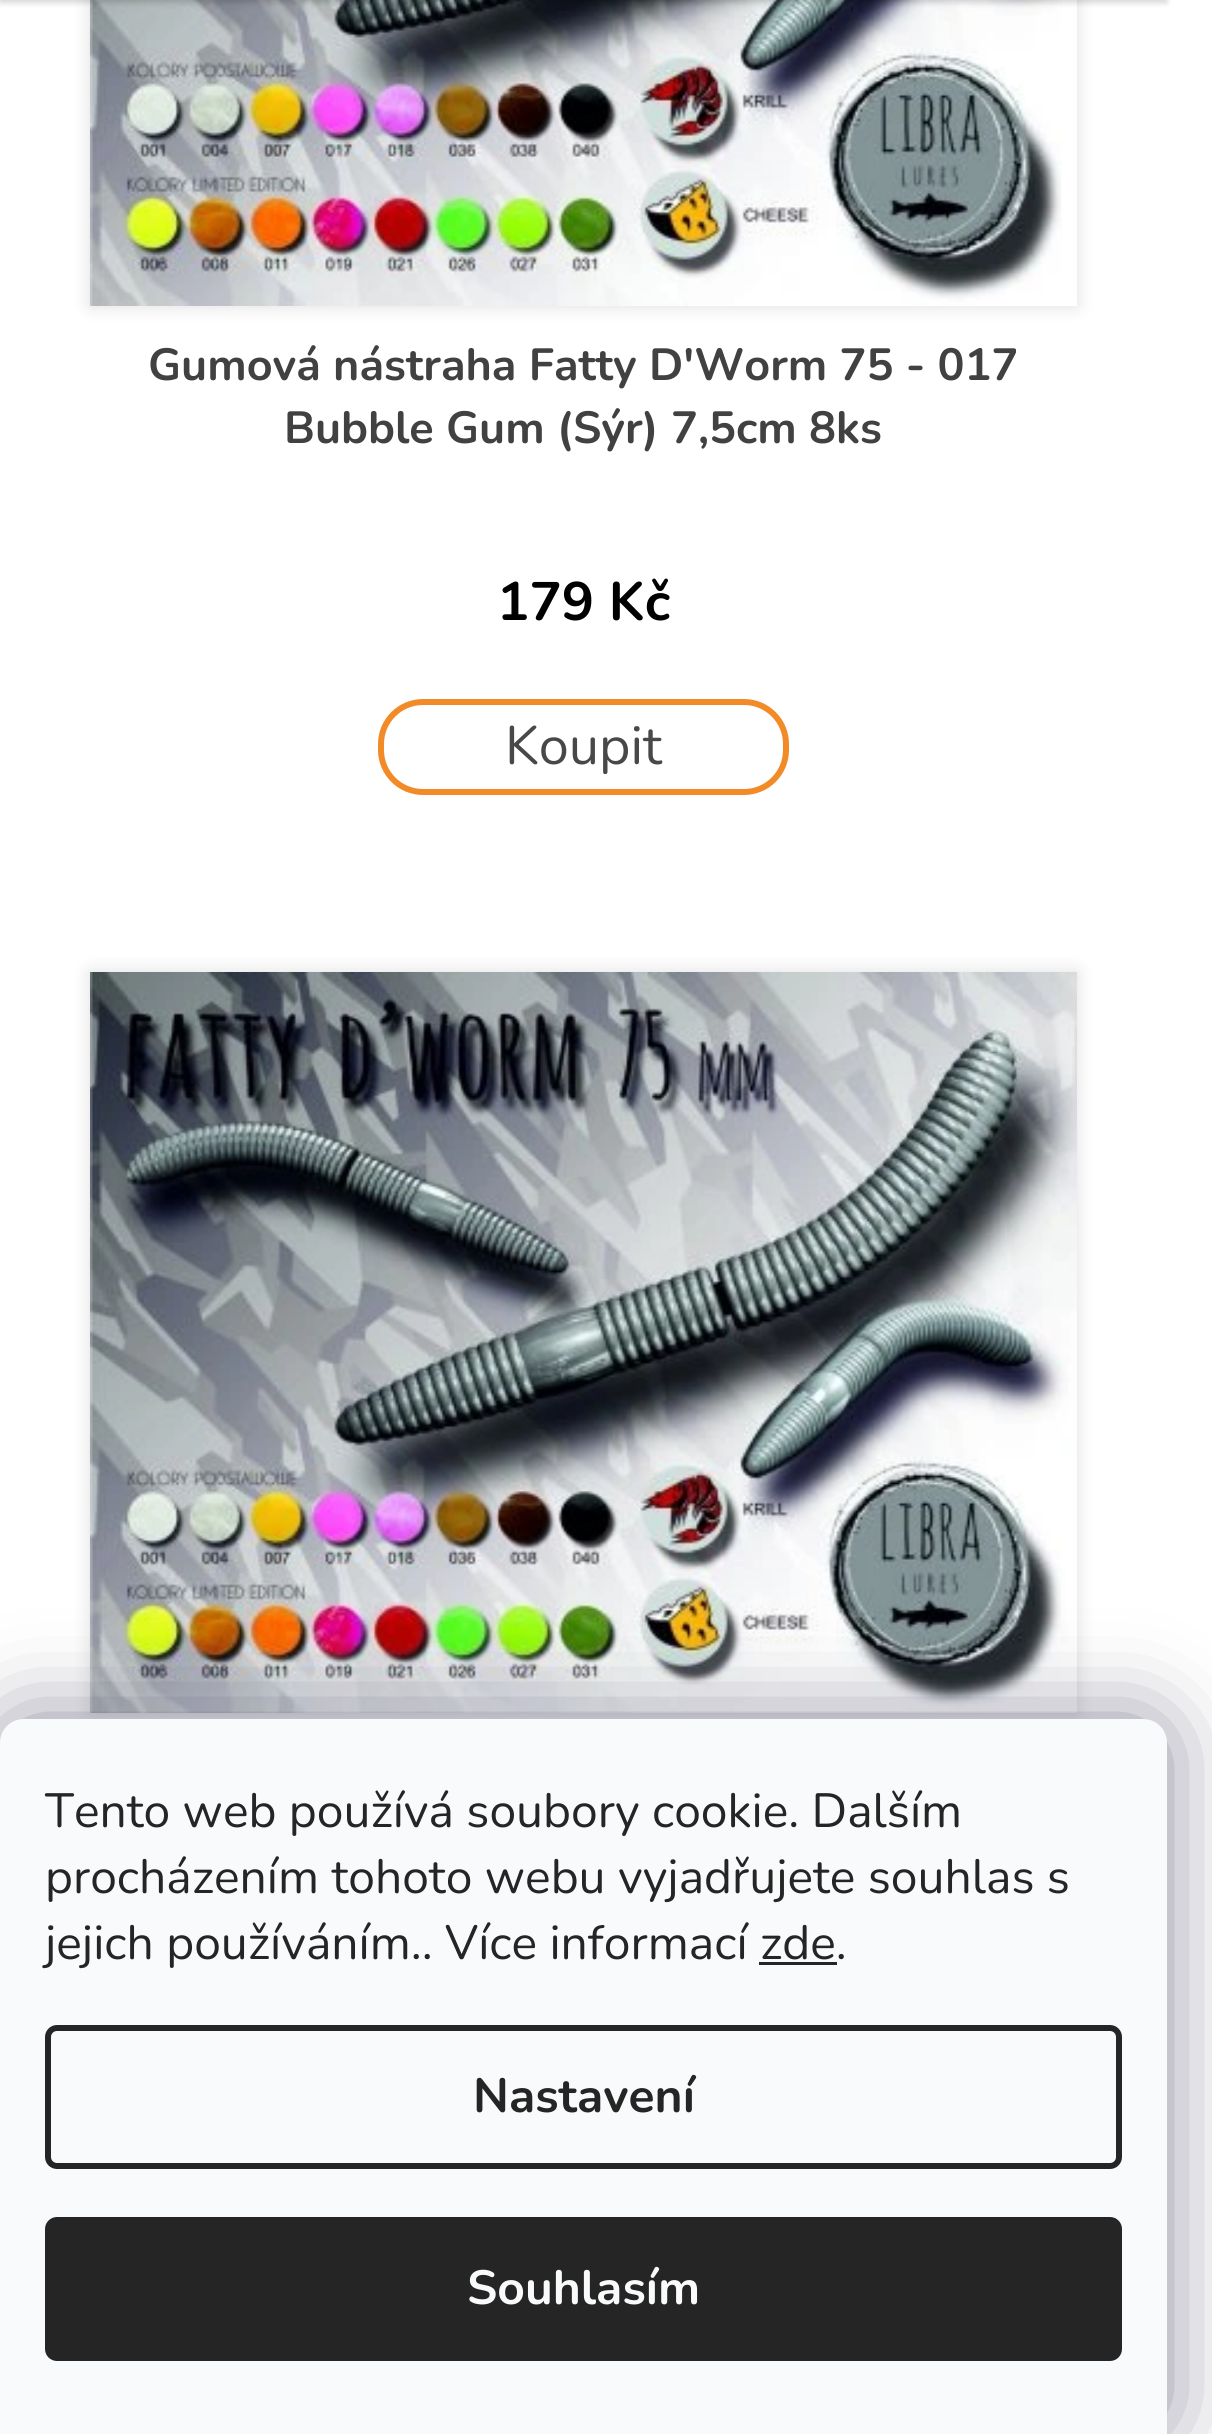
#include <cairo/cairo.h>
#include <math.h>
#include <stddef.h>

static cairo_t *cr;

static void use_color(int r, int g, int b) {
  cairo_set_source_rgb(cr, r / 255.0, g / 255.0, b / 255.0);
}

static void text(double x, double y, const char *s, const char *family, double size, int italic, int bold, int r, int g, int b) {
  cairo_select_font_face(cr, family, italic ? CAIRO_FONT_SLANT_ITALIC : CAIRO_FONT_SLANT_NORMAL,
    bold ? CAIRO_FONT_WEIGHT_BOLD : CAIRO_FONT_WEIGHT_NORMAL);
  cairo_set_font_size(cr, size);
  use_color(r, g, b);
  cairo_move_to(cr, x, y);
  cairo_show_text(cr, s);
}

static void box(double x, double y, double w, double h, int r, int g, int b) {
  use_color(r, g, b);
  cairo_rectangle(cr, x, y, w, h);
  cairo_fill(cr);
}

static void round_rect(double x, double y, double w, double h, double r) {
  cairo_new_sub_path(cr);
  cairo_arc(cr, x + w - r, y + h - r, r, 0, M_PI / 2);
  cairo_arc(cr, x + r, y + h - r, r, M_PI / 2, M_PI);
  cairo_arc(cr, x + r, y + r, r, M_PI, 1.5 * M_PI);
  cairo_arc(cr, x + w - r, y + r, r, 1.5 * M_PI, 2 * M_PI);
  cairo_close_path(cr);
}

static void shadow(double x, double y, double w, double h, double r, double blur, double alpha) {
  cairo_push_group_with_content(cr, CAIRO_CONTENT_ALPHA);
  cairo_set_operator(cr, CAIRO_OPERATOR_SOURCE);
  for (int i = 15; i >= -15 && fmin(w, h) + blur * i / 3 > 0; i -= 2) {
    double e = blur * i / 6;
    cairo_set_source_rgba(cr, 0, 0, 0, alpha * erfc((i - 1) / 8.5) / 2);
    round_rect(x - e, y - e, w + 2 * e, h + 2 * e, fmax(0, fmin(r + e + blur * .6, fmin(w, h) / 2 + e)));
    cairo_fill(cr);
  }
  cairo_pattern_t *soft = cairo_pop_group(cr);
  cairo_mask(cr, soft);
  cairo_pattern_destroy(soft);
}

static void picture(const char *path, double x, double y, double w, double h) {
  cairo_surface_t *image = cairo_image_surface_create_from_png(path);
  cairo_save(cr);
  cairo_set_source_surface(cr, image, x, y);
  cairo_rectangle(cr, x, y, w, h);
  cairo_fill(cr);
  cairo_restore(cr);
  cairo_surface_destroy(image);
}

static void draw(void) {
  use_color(255, 255, 255);
  cairo_paint(cr);
  cairo_save(cr);
  cairo_set_fill_rule(cr, CAIRO_FILL_RULE_EVEN_ODD);
  cairo_new_path(cr);
  cairo_move_to(cr, 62, 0);
  cairo_line_to(cr, 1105, 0);
  cairo_line_to(cr, 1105, 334);
  cairo_line_to(cr, 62, 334);
  cairo_close_path(cr);
  cairo_move_to(cr, 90, -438);
  cairo_line_to(cr, 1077, -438);
  cairo_line_to(cr, 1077, 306);
  cairo_line_to(cr, 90, 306);
  cairo_close_path(cr);
  cairo_clip(cr);
  use_color(0, 0, 0);
  shadow(90, -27, 987, 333, 0, 9, 0.13);
  cairo_restore(cr);
  picture("img_01.png", 90, 0, 972, 306);
  use_color(0, 0, 0);
  shadow(0, -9, 1167, 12, 0, 3, 0.16);
  round_rect(381, 702, 405, 90, 42);
  use_color(242, 138, 39);
  cairo_set_line_width(cr, 6);
  cairo_stroke(cr);
  use_color(0, 0, 0);
  shadow(90, 972, 987, 741, 0, 9, 0.13);
  picture("img_02.png", 90, 972, 987, 741);
  use_color(27, 25, 57);
  shadow(0, 1719, 1167, 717, 24, 45, 0.5);
  use_color(248, 250, 251);
  cairo_new_path(cr);
  cairo_move_to(cr, 24, 1719);
  cairo_line_to(cr, 1143, 1719);
  cairo_curve_to(cr, 1156.5, 1719, 1167, 1729.5, 1167, 1743);
  cairo_line_to(cr, 1167, 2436);
  cairo_line_to(cr, 0, 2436);
  cairo_line_to(cr, 0, 1743);
  cairo_curve_to(cr, 0, 1729.5, 10.5, 1719, 24, 1719);
  cairo_close_path(cr);
  cairo_fill(cr);
  box(759, 1962, 78, 3, 37, 37, 37);
  round_rect(48, 2028, 1071, 138, 9);
  cairo_stroke(cr);
  round_rect(45, 2217, 1077, 144, 12);
  cairo_fill(cr);
  text(148, 380, "Gumová nástraha Fatty D'Worm 75 - 017", "Nunito", 45, 0, 1, 65, 65, 65);
  text(284, 443, "Bubble Gum (Sýr) 7,5cm 8ks", "Nunito", 45, 0, 1, 65, 65, 65);
  text(497, 620, "179 Kč", "Nunito", 54, 0, 1, 0, 0, 0);
  text(505, 764, "Koupit", "Nunito", 54, 0, 0, 72, 72, 72);
  text(45, 1827, "Tento web používá soubory cookie. Dalším", "Nunito", 48, 0, 0, 37, 37, 37);
  text(45, 1893, "procházením tohoto webu vyjadřujete souhlas s", "Nunito", 48, 0, 0, 37, 37, 37);
  text(45, 1959, "jejich používáním.. Více informací zde.", "Nunito", 48, 0, 0, 37, 37, 37);
  text(473, 2112, "Nastavení", "Nunito", 48, 0, 1, 37, 37, 37);
  text(467, 2304, "Souhlasím", "Nunito", 48, 0, 1, 248, 250, 251);
}

int main(void) {
  cairo_surface_t *surface = cairo_image_surface_create(CAIRO_FORMAT_RGB24, 1212, 2434);
  cr = cairo_create(surface);
  cairo_font_options_t *options = cairo_font_options_create();
  cairo_font_options_set_hint_metrics(options, CAIRO_HINT_METRICS_OFF);
  cairo_font_options_set_hint_style(options, CAIRO_HINT_STYLE_NONE);
  cairo_set_font_options(cr, options);
  cairo_set_miter_limit(cr, 4);
  draw();
  cairo_surface_write_to_png(surface, "out.png");
  cairo_font_options_destroy(options);
  cairo_destroy(cr);
  cairo_surface_destroy(surface);
  return 0;
}
